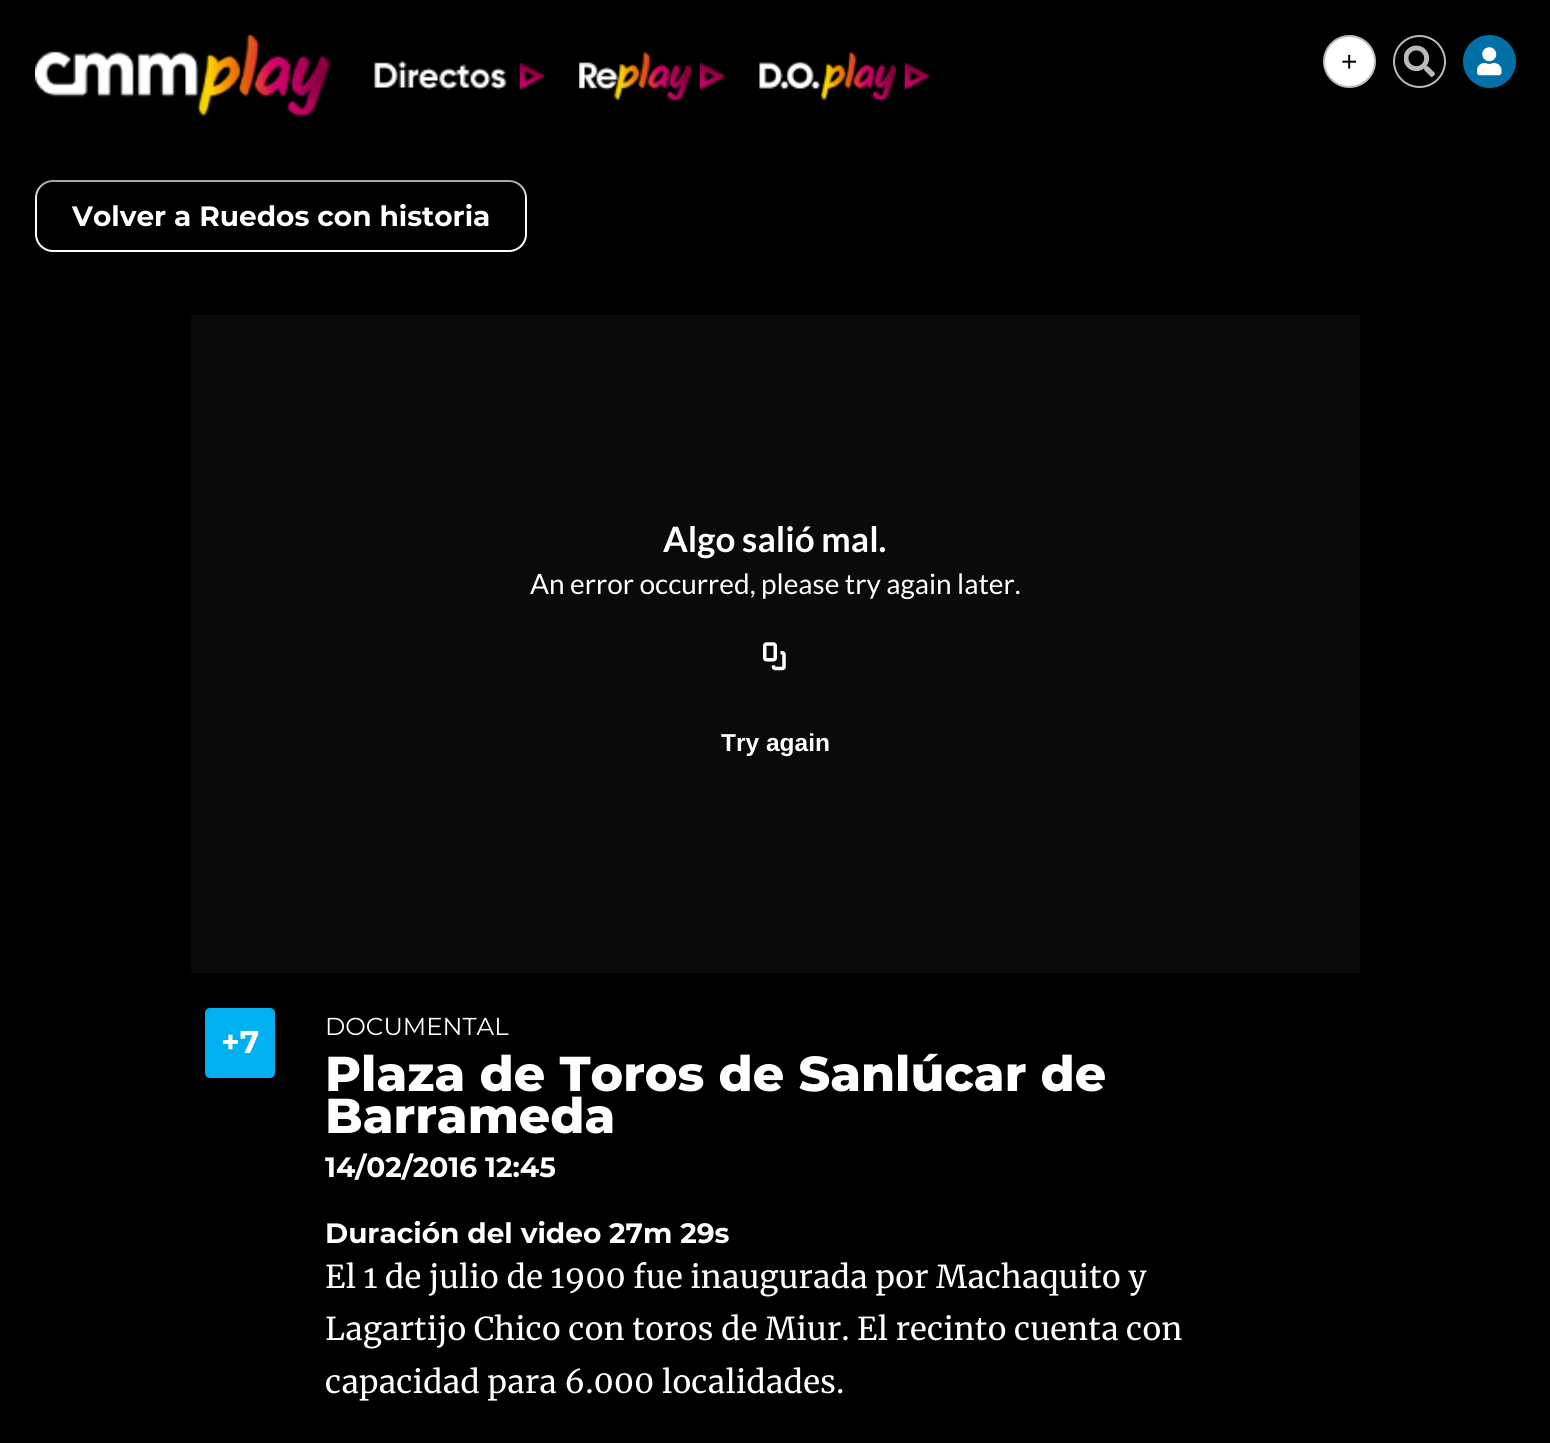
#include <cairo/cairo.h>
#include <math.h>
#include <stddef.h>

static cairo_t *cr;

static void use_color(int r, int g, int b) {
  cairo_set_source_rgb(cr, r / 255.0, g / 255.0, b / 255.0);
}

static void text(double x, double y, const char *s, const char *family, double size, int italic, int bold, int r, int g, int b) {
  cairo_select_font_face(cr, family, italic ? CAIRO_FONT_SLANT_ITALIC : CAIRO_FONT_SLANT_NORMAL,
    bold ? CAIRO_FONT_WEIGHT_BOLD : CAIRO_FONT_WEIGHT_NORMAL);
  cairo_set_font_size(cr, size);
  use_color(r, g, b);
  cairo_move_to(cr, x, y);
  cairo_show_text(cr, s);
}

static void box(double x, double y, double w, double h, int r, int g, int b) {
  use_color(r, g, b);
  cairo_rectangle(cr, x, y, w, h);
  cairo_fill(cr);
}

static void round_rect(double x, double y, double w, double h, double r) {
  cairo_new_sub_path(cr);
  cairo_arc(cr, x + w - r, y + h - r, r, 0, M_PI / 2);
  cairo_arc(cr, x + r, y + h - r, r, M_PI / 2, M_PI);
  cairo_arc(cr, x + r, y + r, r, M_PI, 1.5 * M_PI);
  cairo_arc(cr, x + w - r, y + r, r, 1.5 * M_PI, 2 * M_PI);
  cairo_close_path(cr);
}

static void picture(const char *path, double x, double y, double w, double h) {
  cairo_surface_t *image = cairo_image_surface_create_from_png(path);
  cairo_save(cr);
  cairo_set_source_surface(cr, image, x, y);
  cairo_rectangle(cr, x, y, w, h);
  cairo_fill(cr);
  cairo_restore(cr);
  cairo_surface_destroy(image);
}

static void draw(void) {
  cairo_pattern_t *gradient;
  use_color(0, 0, 0);
  cairo_paint(cr);
  round_rect(36, 181, 490, 70, 17);
  use_color(255, 255, 255);
  cairo_stroke(cr);
  gradient = cairo_pattern_create_linear(775, 203, 775, 0);
  cairo_pattern_add_color_stop_rgba(gradient, 0, 0, 0, 0, 0);
  cairo_pattern_add_color_stop_rgba(gradient, 0.28, 0, 0, 0, 0.91);
  cairo_pattern_add_color_stop_rgba(gradient, 1, 0, 0, 0, 1);
  cairo_set_source(cr, gradient);
  cairo_pattern_destroy(gradient);
  cairo_rectangle(cr, 35, 180, 492, 22);
  cairo_fill(cr);
  picture("img_01.png", 35, 35, 294, 81);
  picture("img_02.png", 374, 60, 133, 30);
  picture("img_03.png", 519, 63, 26, 27);
  picture("img_04.png", 579, 52, 113, 48);
  picture("img_05.png", 700, 63, 25, 27);
  picture("img_06.png", 759, 52, 137, 48);
  picture("img_03.png", 904, 63, 26, 27);
  use_color(255, 255, 255);
  cairo_arc(cr, 1349.5, 61.5, 25.5, 0, 2 * M_PI);
  cairo_fill_preserve(cr);
  use_color(186, 186, 186);
  cairo_stroke(cr);
  cairo_arc(cr, 1419.5, 61.5, 25.5, 0, 2 * M_PI);
  cairo_stroke(cr);
  picture("img_07.png", 1404, 45, 31, 32);
  use_color(0, 112, 167);
  cairo_arc(cr, 1489.5, 61.5, 26.5, 0, 2 * M_PI);
  cairo_fill(cr);
  picture("img_08.png", 1477, 47, 25, 29);
  box(191, 315, 1169, 658, 10, 10, 10);
  picture("img_09.png", 763, 642, 23, 29);
  use_color(0, 176, 240);
  round_rect(205, 1008, 70, 70, 5);
  cairo_fill(cr);
  text(1341, 71, "+", "Liberation Sans", 28, 0, 0, 0, 0, 0);
  text(72, 226, "Volver a Ruedos con historia", "Montserrat", 28, 0, 1, 255, 255, 255);
  text(663, 552, "Algo salió mal.", "Lato", 35, 0, 1, 255, 255, 255);
  text(530, 594, "An error occurred, please try again later.", "Lato", 28, 0, 0, 255, 255, 255);
  text(721, 751, "Try again", "Liberation Sans", 24.5, 0, 1, 255, 255, 255);
  text(221, 1053, "+7", "Montserrat", 31.5, 0, 1, 255, 255, 255);
  text(325, 1035, "DOCUMENTAL", "Montserrat", 24.5, 0, 0, 255, 255, 255);
  text(325, 1091, "Plaza de Toros de Sanlúcar de", "Montserrat ExtraBold", 49, 0, 0, 255, 255, 255);
  text(325, 1133, "Barrameda", "Montserrat ExtraBold", 49, 0, 0, 255, 255, 255);
  text(325, 1177, "14/02/2016 12:45", "Montserrat", 28, 0, 1, 255, 255, 255);
  text(325, 1243, "Duración del video", "Montserrat", 28, 0, 1, 255, 255, 255);
  text(609, 1243, "27m 29s", "Montserrat", 28, 0, 1, 255, 255, 255);
  text(325, 1288, "El 1 de julio de 1900 fue inaugurada por Machaquito y", "Merriweather", 31.5, 0, 0, 255, 255, 255);
  text(325, 1340, "Lagartijo Chico con toros de Miur. El recinto cuenta con", "Merriweather", 31.5, 0, 0, 255, 255, 255);
  text(325, 1393, "capacidad para 6.000 localidades.", "Merriweather", 31.5, 0, 0, 255, 255, 255);
}

int main(void) {
  cairo_surface_t *surface = cairo_image_surface_create(CAIRO_FORMAT_RGB24, 1550, 1443);
  cr = cairo_create(surface);
  cairo_font_options_t *options = cairo_font_options_create();
  cairo_font_options_set_hint_metrics(options, CAIRO_HINT_METRICS_OFF);
  cairo_font_options_set_hint_style(options, CAIRO_HINT_STYLE_NONE);
  cairo_set_font_options(cr, options);
  cairo_set_miter_limit(cr, 4);
  draw();
  cairo_surface_write_to_png(surface, "out.png");
  cairo_font_options_destroy(options);
  cairo_destroy(cr);
  cairo_surface_destroy(surface);
  return 0;
}
